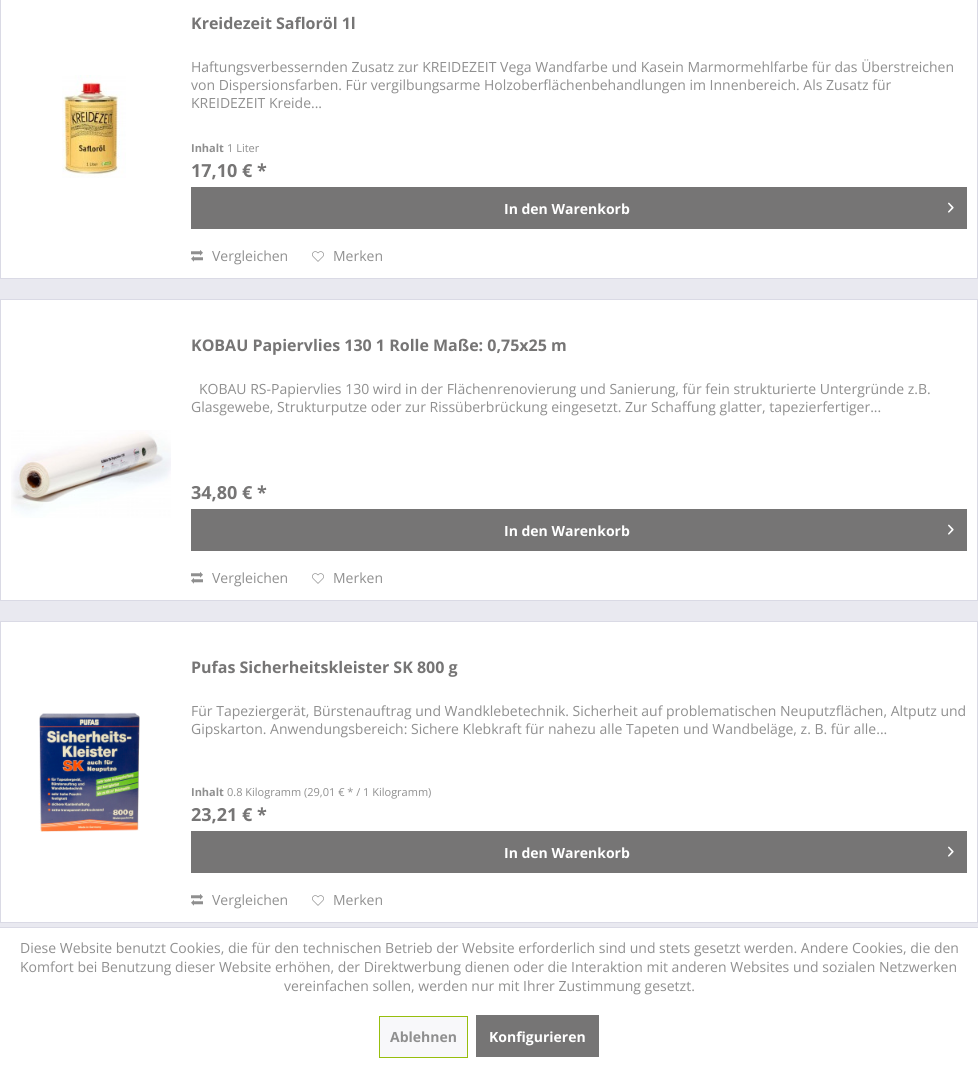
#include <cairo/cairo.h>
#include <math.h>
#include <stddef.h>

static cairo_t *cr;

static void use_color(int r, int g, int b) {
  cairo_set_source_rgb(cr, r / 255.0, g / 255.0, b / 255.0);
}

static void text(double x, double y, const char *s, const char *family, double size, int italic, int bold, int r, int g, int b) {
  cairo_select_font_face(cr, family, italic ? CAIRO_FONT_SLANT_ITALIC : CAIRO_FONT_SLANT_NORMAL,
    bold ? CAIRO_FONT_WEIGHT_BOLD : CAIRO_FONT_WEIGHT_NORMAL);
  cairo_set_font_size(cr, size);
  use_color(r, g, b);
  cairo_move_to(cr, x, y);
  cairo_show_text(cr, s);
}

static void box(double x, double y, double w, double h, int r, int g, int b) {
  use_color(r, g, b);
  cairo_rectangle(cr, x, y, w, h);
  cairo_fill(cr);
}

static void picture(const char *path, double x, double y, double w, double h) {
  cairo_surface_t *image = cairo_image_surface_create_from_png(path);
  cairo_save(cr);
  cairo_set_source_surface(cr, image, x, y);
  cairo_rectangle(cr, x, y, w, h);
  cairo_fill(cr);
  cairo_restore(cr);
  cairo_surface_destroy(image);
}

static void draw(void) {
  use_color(233, 233, 240);
  cairo_paint(cr);
  use_color(255, 255, 255);
  cairo_rectangle(cr, 0.5, -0.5, 977, 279);
  cairo_fill_preserve(cr);
  use_color(218, 218, 229);
  cairo_set_line_width(cr, 1);
  cairo_stroke(cr);
  picture("img_01.png", 62, 75, 64, 103);
  box(191, 187, 776, 42, 118, 117, 117);
  picture("img_02.png", 948, 202, 6, 11);
  picture("img_03.png", 191, 250, 12, 12);
  picture("img_04.png", 312, 251, 12, 11);
  use_color(255, 255, 255);
  cairo_rectangle(cr, 0.5, 299.5, 977, 301);
  cairo_fill_preserve(cr);
  use_color(218, 218, 229);
  cairo_stroke(cr);
  picture("img_05.png", 11, 430, 160, 88);
  box(191, 509, 776, 42, 118, 117, 117);
  picture("img_02.png", 948, 524, 6, 11);
  picture("img_03.png", 191, 572, 12, 12);
  picture("img_04.png", 312, 573, 12, 11);
  use_color(255, 255, 255);
  cairo_rectangle(cr, 0.5, 621.5, 977, 301);
  cairo_fill_preserve(cr);
  use_color(218, 218, 229);
  cairo_stroke(cr);
  picture("img_06.png", 39, 712, 101, 120);
  box(191, 831, 776, 42, 118, 117, 117);
  picture("img_02.png", 948, 846, 6, 11);
  picture("img_03.png", 191, 894, 12, 12);
  picture("img_04.png", 312, 895, 12, 11);
  box(0, 928, 978, 140, 255, 255, 255);
  box(0, 927, 978, 1, 218, 218, 229);
  use_color(248, 248, 250);
  cairo_rectangle(cr, 379.5, 1016.5, 88, 41);
  cairo_fill_preserve(cr);
  use_color(151, 190, 13);
  cairo_stroke(cr);
  box(476, 1015, 123, 42, 118, 117, 117);
  text(191, 29, "Kreidezeit Safloröl 1l", "Open Sans", 16, 0, 1, 118, 117, 117);
  text(191, 72, "Haftungsverbessernden Zusatz zur KREIDEZEIT Vega Wandfarbe und Kasein Marmormehlfarbe für das Überstreichen", "Open Sans", 14, 0, 0, 143, 143, 143);
  text(191, 90, "von Dispersionsfarben. Für vergilbungsarme Holzoberflächenbehandlungen im Innenbereich. Als Zusatz für", "Open Sans", 14, 0, 0, 143, 143, 143);
  text(191, 108, "KREIDEZEIT Kreide...", "Open Sans", 14, 0, 0, 143, 143, 143);
  text(191, 152, "Inhalt", "Open Sans", 11, 0, 1, 143, 143, 143);
  text(227, 152, "1 Liter", "Open Sans", 11, 0, 0, 143, 143, 143);
  text(191, 177, "17,10 € *", "Open Sans", 18, 0, 1, 118, 117, 117);
  text(504, 214, "In den Warenkorb", "Open Sans", 14, 0, 1, 255, 255, 255);
  text(212, 261, "Vergleichen", "Open Sans", 14, 0, 0, 143, 143, 143);
  text(333, 261, "Merken", "Open Sans", 14, 0, 0, 143, 143, 143);
  text(191, 351, "KOBAU Papiervlies 130 1 Rolle Maße: 0,75x25 m", "Open Sans", 16, 0, 1, 118, 117, 117);
  text(199, 394, "KOBAU RS-Papiervlies 130 wird in der Flächenrenovierung und Sanierung, für fein strukturierte Untergründe z.B.", "Open Sans", 14, 0, 0, 143, 143, 143);
  text(191, 412, "Glasgewebe, Strukturputze oder zur Rissüberbrückung eingesetzt. Zur Schaffung glatter, tapezierfertiger...", "Open Sans", 14, 0, 0, 143, 143, 143);
  text(191, 499, "34,80 € *", "Open Sans", 18, 0, 1, 118, 117, 117);
  text(504, 536, "In den Warenkorb", "Open Sans", 14, 0, 1, 255, 255, 255);
  text(212, 583, "Vergleichen", "Open Sans", 14, 0, 0, 143, 143, 143);
  text(333, 583, "Merken", "Open Sans", 14, 0, 0, 143, 143, 143);
  text(191, 673, "Pufas Sicherheitskleister SK 800 g", "Open Sans", 16, 0, 1, 118, 117, 117);
  text(191, 716, "Für Tapeziergerät, Bürstenauftrag und Wandklebetechnik. Sicherheit auf problematischen Neuputzflächen, Altputz und", "Open Sans", 14, 0, 0, 143, 143, 143);
  text(191, 734, "Gipskarton. Anwendungsbereich: Sichere Klebkraft für nahezu alle Tapeten und Wandbeläge, z. B. für alle...", "Open Sans", 14, 0, 0, 143, 143, 143);
  text(191, 796, "Inhalt", "Open Sans", 11, 0, 1, 143, 143, 143);
  text(227, 796, "0.8 Kilogramm (29,01 € * / 1 Kilogramm)", "Open Sans", 11, 0, 0, 143, 143, 143);
  text(191, 821, "23,21 € *", "Open Sans", 18, 0, 1, 118, 117, 117);
  text(504, 858, "In den Warenkorb", "Open Sans", 14, 0, 1, 255, 255, 255);
  text(212, 905, "Vergleichen", "Open Sans", 14, 0, 0, 143, 143, 143);
  text(333, 905, "Merken", "Open Sans", 14, 0, 0, 143, 143, 143);
  text(20, 953, "Diese Website benutzt Cookies, die für den technischen Betrieb der Website erforderlich sind und stets gesetzt werden. Andere Cookies, die den", "Open Sans", 14, 0, 0, 143, 143, 143);
  text(20, 972, "Komfort bei Benutzung dieser Website erhöhen, der Direktwerbung dienen oder die Interaktion mit anderen Websites und sozialen Netzwerken", "Open Sans", 14, 0, 0, 143, 143, 143);
  text(284, 991, "vereinfachen sollen, werden nur mit Ihrer Zustimmung gesetzt.", "Open Sans", 14, 0, 0, 143, 143, 143);
  text(390, 1042, "Ablehnen", "Open Sans", 14, 0, 1, 143, 143, 143);
  text(489, 1042, "Konfigurieren", "Open Sans", 14, 0, 1, 255, 255, 255);
}

int main(void) {
  cairo_surface_t *surface = cairo_image_surface_create(CAIRO_FORMAT_RGB24, 978, 1068);
  cr = cairo_create(surface);
  cairo_font_options_t *options = cairo_font_options_create();
  cairo_font_options_set_hint_metrics(options, CAIRO_HINT_METRICS_OFF);
  cairo_font_options_set_hint_style(options, CAIRO_HINT_STYLE_NONE);
  cairo_set_font_options(cr, options);
  cairo_set_miter_limit(cr, 4);
  draw();
  cairo_surface_write_to_png(surface, "out.png");
  cairo_font_options_destroy(options);
  cairo_destroy(cr);
  cairo_surface_destroy(surface);
  return 0;
}
